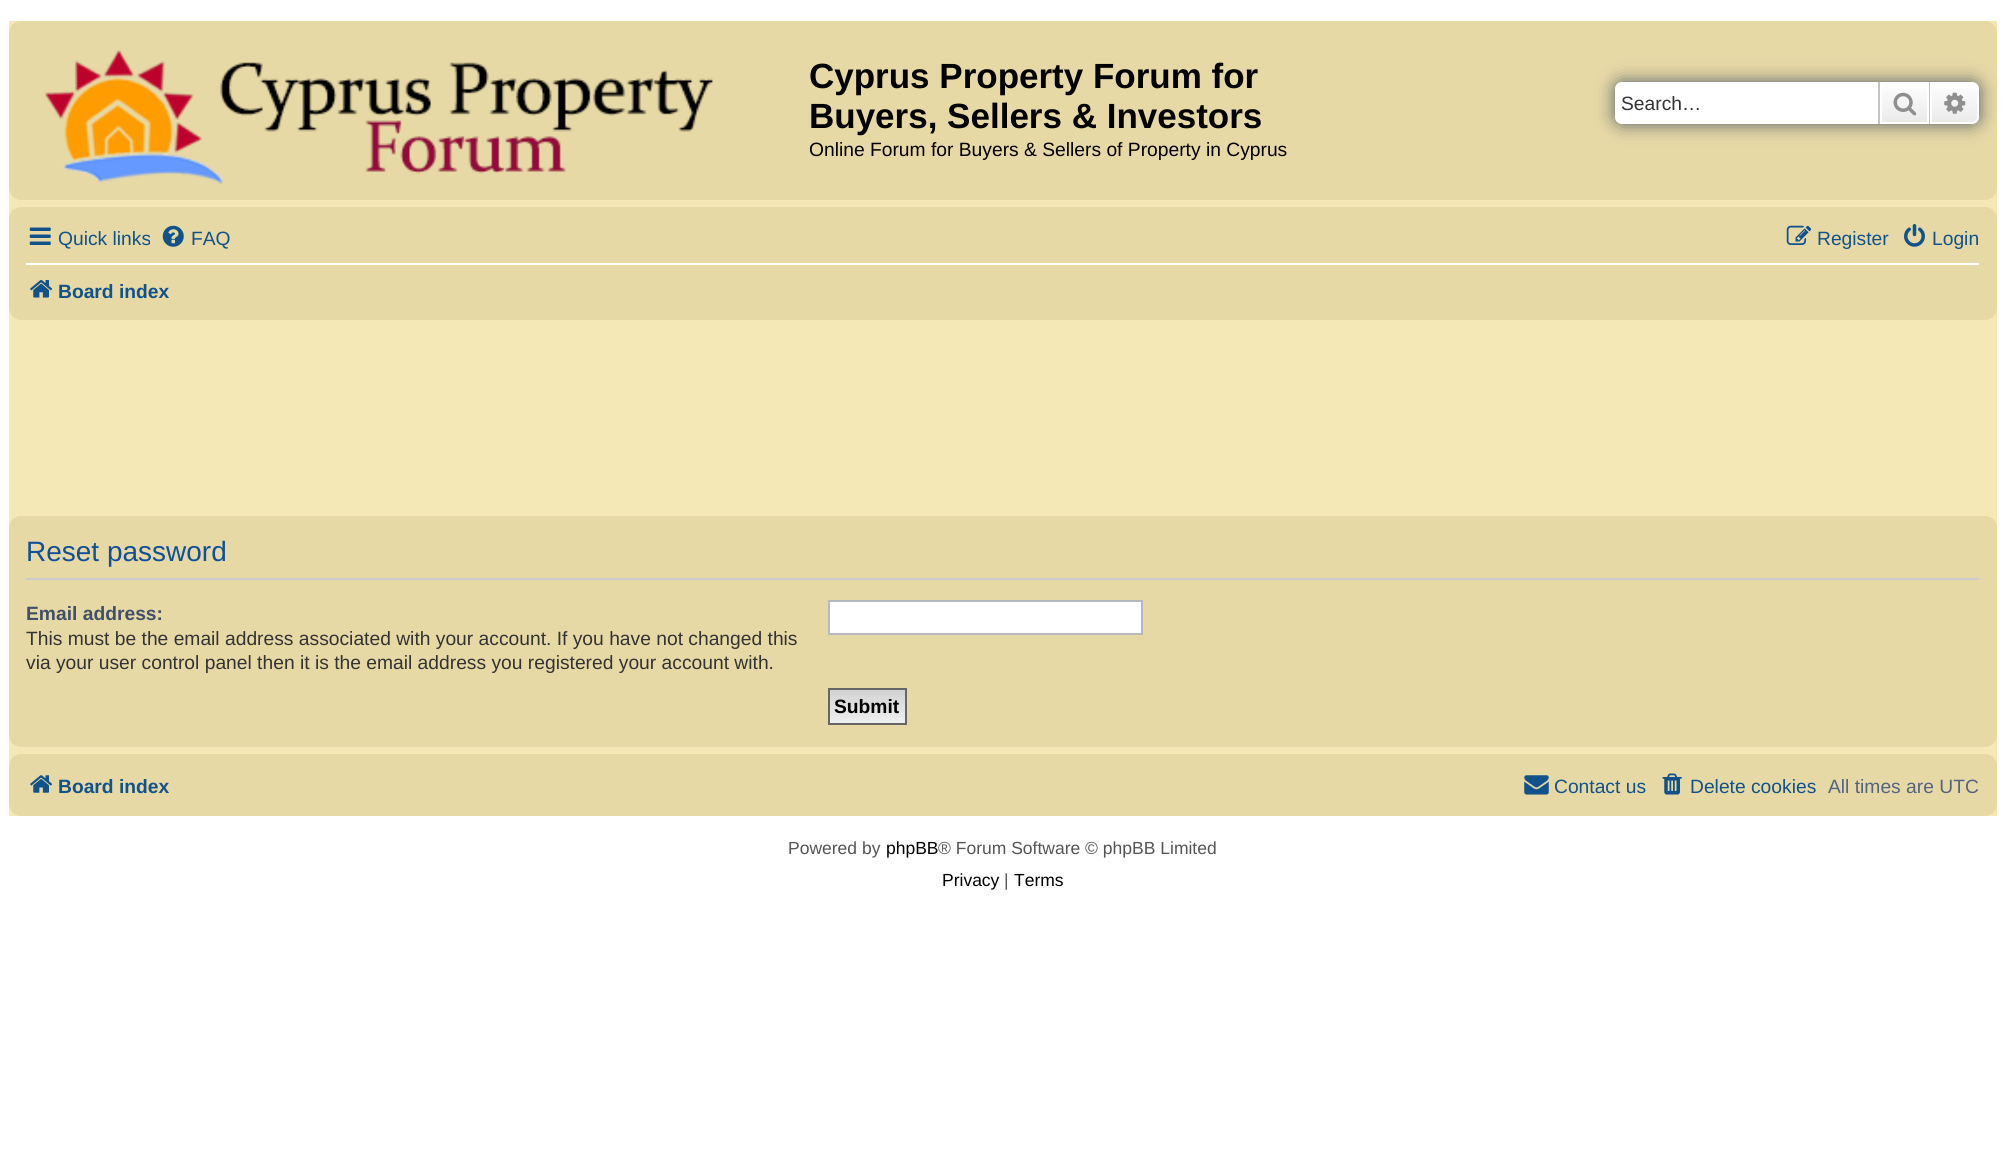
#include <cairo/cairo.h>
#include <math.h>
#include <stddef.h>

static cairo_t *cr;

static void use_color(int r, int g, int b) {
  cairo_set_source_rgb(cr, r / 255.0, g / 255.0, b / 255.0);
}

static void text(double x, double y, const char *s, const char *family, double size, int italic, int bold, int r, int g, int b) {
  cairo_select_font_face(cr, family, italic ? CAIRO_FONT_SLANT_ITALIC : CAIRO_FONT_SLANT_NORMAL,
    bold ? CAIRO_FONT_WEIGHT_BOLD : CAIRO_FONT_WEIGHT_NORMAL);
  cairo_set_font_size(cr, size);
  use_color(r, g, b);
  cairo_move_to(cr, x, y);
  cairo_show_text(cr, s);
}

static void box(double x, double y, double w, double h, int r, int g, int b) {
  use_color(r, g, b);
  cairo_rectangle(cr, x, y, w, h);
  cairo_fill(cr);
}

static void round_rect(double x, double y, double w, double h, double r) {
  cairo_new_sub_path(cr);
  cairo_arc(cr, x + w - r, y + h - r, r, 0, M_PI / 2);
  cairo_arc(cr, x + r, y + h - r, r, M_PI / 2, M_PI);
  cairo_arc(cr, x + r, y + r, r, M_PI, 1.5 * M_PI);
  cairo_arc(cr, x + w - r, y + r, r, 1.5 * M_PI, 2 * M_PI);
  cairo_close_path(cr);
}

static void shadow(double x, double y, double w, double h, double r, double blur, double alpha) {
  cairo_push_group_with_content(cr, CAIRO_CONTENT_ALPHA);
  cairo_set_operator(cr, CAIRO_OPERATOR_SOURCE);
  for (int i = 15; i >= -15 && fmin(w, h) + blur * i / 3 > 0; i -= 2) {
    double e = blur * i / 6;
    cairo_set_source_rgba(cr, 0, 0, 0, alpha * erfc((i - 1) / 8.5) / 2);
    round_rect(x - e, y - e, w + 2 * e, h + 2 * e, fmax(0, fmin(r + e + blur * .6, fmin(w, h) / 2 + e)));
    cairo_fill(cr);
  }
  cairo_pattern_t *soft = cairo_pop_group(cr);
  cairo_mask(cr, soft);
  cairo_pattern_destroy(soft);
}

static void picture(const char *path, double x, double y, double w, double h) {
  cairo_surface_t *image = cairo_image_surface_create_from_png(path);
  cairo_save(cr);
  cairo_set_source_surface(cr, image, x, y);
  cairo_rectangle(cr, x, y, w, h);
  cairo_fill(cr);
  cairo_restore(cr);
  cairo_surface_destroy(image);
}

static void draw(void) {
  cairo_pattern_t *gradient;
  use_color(255, 255, 255);
  cairo_paint(cr);
  box(9, 21, 1988, 795, 245, 232, 183);
  use_color(231, 217, 166);
  round_rect(9, 21, 1988, 179, 12);
  cairo_fill(cr);
  picture("img_01.png", 45, 50, 668, 135);
  use_color(80, 92, 101);
  shadow(1615, 82, 364, 42, 7, 9, 1);
  use_color(255, 255, 255);
  cairo_new_path(cr);
  cairo_move_to(cr, 1622, 82);
  cairo_line_to(cr, 1878, 82);
  cairo_line_to(cr, 1878, 124);
  cairo_line_to(cr, 1622, 124);
  cairo_curve_to(cr, 1618, 124, 1615, 121, 1615, 117);
  cairo_line_to(cr, 1615, 89);
  cairo_curve_to(cr, 1615, 85, 1618, 82, 1622, 82);
  cairo_close_path(cr);
  cairo_fill(cr);
  gradient = cairo_pattern_create_linear(1904, 82, 1904, 124);
  cairo_pattern_add_color_stop_rgba(gradient, 0, 1, 1, 1, 1);
  cairo_pattern_add_color_stop_rgba(gradient, 1, 0.914, 0.914, 0.914, 1);
  cairo_set_source(cr, gradient);
  cairo_pattern_destroy(gradient);
  cairo_rectangle(cr, 1882, 84, 45, 38);
  cairo_fill(cr);
  cairo_rectangle(cr, 1881, 83, 47, 40);
  use_color(255, 255, 255);
  cairo_stroke(cr);
  box(1929, 82, 1, 42, 199, 195, 191);
  box(1878, 82, 2, 42, 199, 195, 191);
  picture("img_02.png", 1893, 92, 24, 24);
  gradient = cairo_pattern_create_linear(1955, 82, 1955, 124);
  cairo_pattern_add_color_stop_rgba(gradient, 0, 1, 1, 1, 1);
  cairo_pattern_add_color_stop_rgba(gradient, 1, 0.914, 0.914, 0.914, 1);
  cairo_set_source(cr, gradient);
  cairo_pattern_destroy(gradient);
  cairo_new_path(cr);
  cairo_move_to(cr, 1931, 83);
  cairo_line_to(cr, 1972, 83);
  cairo_curve_to(cr, 1975.5, 83, 1978, 85.5, 1978, 89);
  cairo_line_to(cr, 1978, 117);
  cairo_curve_to(cr, 1978, 120.5, 1975.5, 123, 1972, 123);
  cairo_line_to(cr, 1931, 123);
  cairo_close_path(cr);
  cairo_fill_preserve(cr);
  use_color(255, 255, 255);
  cairo_stroke(cr);
  picture("img_03.png", 1944, 92, 22, 22);
  use_color(231, 217, 166);
  round_rect(9, 207, 1988, 113, 12);
  cairo_fill(cr);
  picture("img_04.png", 29, 227, 22, 18);
  picture("img_05.png", 162, 225, 22, 22);
  picture("img_06.png", 1786, 225, 26, 20);
  picture("img_07.png", 1904, 224, 21, 23);
  box(26, 263, 1953, 2, 255, 255, 255);
  picture("img_08.png", 30, 280, 23, 18);
  use_color(231, 217, 166);
  round_rect(9, 516, 1988, 231, 12);
  cairo_fill(cr);
  box(26, 578, 1953, 2, 204, 204, 204);
  use_color(255, 255, 255);
  cairo_rectangle(cr, 829, 601, 313, 33);
  cairo_fill_preserve(cr);
  use_color(180, 186, 192);
  cairo_stroke(cr);
  gradient = cairo_pattern_create_linear(867, 690, 867, 723);
  cairo_pattern_add_color_stop_rgba(gradient, 0, 0.824, 0.824, 0.824, 1);
  cairo_pattern_add_color_stop_rgba(gradient, 1, 0.937, 0.937, 0.937, 1);
  cairo_set_source(cr, gradient);
  cairo_pattern_destroy(gradient);
  cairo_rectangle(cr, 830, 690, 75, 33);
  cairo_fill(cr);
  cairo_rectangle(cr, 829, 689, 77, 35);
  use_color(102, 102, 102);
  cairo_stroke(cr);
  use_color(231, 217, 166);
  round_rect(9, 754, 1988, 62, 12);
  cairo_fill(cr);
  picture("img_09.png", 30, 775, 23, 18);
  picture("img_10.png", 1524, 775, 25, 20);
  picture("img_11.png", 1662, 773, 20, 22);
  text(809, 88, "Cyprus Property Forum for", "Liberation Sans", 35, 0, 1, 0, 0, 0);
  text(809, 128, "Buyers, Sellers & Investors", "Liberation Sans", 35, 0, 1, 0, 0, 0);
  text(809, 156, "Online Forum for Buyers & Sellers of Property in Cyprus", "Liberation Sans", 19.25, 0, 0, 0, 0, 0);
  text(1621, 110, "Search…", "Liberation Sans", 19.25, 0, 0, 51, 51, 51);
  text(58, 245, "Quick links", "Liberation Sans", 19.25, 0, 0, 16, 82, 137);
  text(191, 245, "FAQ", "Liberation Sans", 19.25, 0, 0, 16, 82, 137);
  text(1817, 245, "Register", "Liberation Sans", 19.25, 0, 0, 16, 82, 137);
  text(1932, 245, "Login", "Liberation Sans", 19.25, 0, 0, 16, 82, 137);
  text(58, 298, "Board index", "Liberation Sans", 19.25, 0, 1, 16, 82, 137);
  text(26, 561, "Reset password", "Liberation Sans", 28, 0, 0, 17, 80, 152);
  text(26, 620, "Email address:", "Liberation Sans", 19.25, 0, 1, 66, 80, 103);
  text(26, 645, "This must be the email address associated with your account. If you have not changed this", "Liberation Sans", 19.25, 0, 0, 51, 51, 51);
  text(26, 669, "via your user control panel then it is the email address you registered your account with.", "Liberation Sans", 19.25, 0, 0, 51, 51, 51);
  text(834, 713, "Submit", "Liberation Sans", 19.25, 0, 1, 0, 0, 0);
  text(58, 793, "Board index", "Liberation Sans", 19.25, 0, 1, 16, 82, 137);
  text(1554, 793, "Contact us", "Liberation Sans", 19.25, 0, 0, 16, 82, 137);
  text(1690, 793, "Delete cookies", "Liberation Sans", 19.25, 0, 0, 16, 82, 137);
  text(1828, 793, "All times are UTC", "Liberation Sans", 19.25, 0, 0, 83, 100, 130);
  text(788, 854, "Powered by", "Liberation Sans", 17.5, 0, 0, 85, 85, 85);
  text(886, 854, "phpBB", "Liberation Sans", 17.5, 0, 0, 0, 0, 0);
  text(938, 854, "® Forum Software © phpBB Limited", "Liberation Sans", 17.5, 0, 0, 85, 85, 85);
  text(942, 886, "Privacy", "Liberation Sans", 17.5, 0, 0, 0, 0, 0);
  text(1004, 886, "|", "Liberation Sans", 17.5, 0, 0, 85, 85, 85);
  text(1014, 886, "Terms", "Liberation Sans", 17.5, 0, 0, 0, 0, 0);
}

int main(void) {
  cairo_surface_t *surface = cairo_image_surface_create(CAIRO_FORMAT_RGB24, 2004, 1162);
  cr = cairo_create(surface);
  cairo_font_options_t *options = cairo_font_options_create();
  cairo_font_options_set_hint_metrics(options, CAIRO_HINT_METRICS_OFF);
  cairo_font_options_set_hint_style(options, CAIRO_HINT_STYLE_NONE);
  cairo_set_font_options(cr, options);
  cairo_set_miter_limit(cr, 4);
  draw();
  cairo_surface_write_to_png(surface, "out.png");
  cairo_font_options_destroy(options);
  cairo_destroy(cr);
  cairo_surface_destroy(surface);
  return 0;
}
